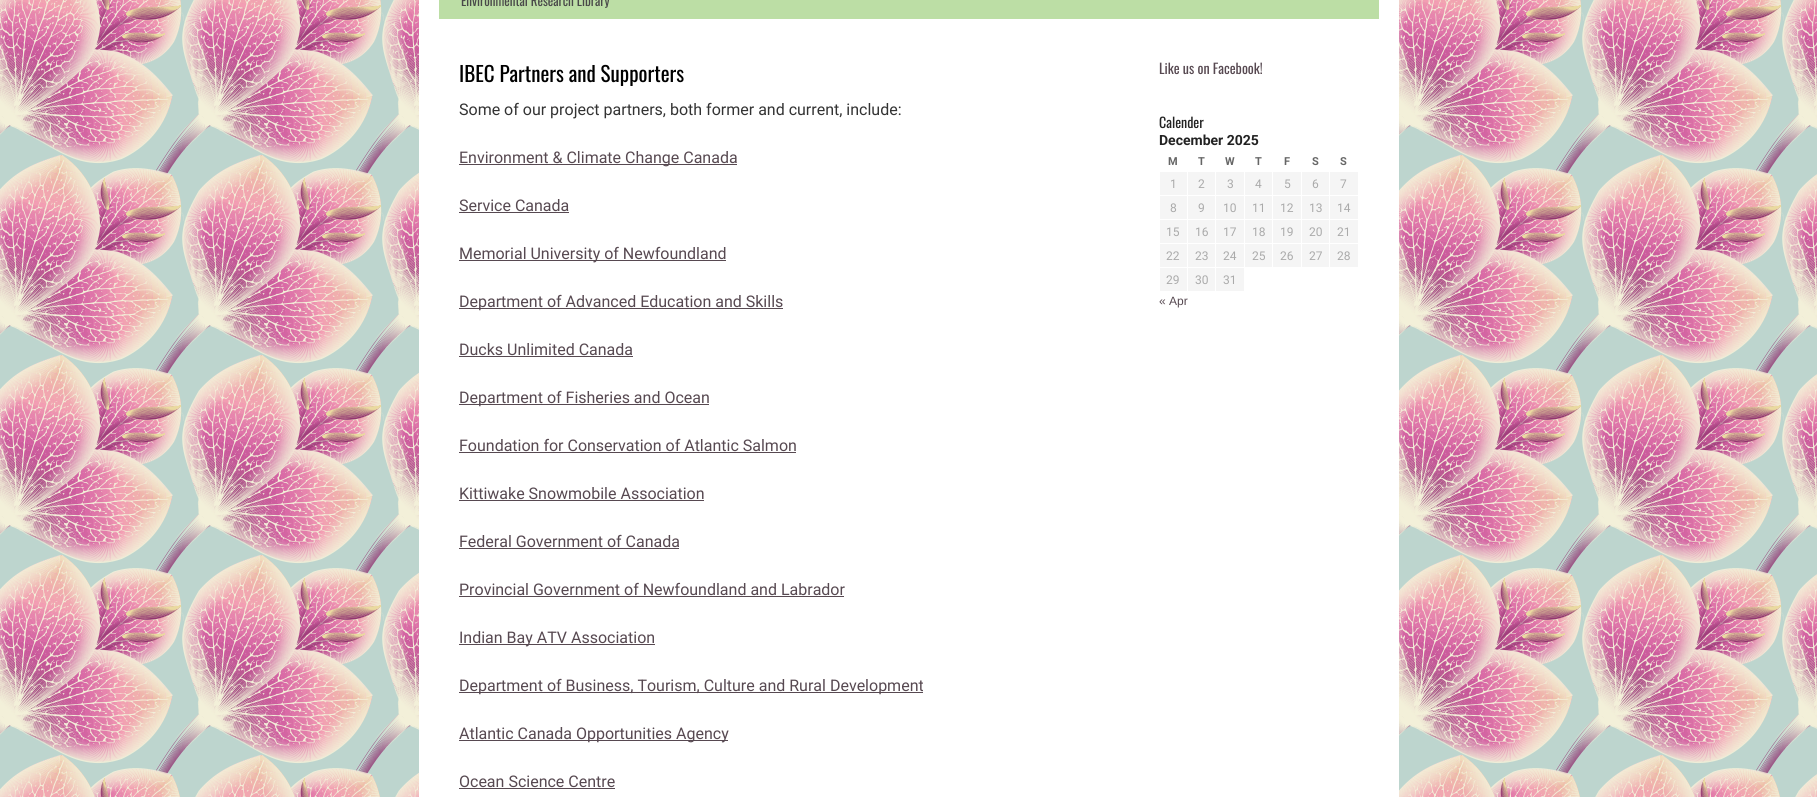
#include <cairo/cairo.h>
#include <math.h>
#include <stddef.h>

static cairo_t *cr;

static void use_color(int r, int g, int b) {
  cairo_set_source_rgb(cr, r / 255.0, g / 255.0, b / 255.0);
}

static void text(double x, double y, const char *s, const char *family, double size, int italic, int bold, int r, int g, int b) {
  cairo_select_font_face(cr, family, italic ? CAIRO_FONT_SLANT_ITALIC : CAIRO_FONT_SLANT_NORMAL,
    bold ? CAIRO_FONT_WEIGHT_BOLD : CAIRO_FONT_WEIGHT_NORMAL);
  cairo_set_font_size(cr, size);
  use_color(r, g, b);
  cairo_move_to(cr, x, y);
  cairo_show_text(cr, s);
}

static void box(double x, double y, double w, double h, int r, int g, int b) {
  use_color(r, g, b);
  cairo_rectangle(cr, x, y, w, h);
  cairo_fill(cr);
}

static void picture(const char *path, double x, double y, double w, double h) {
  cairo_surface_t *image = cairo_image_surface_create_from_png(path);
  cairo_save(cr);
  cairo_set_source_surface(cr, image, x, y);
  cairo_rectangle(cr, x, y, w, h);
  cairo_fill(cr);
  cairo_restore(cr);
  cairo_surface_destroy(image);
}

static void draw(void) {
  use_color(255, 255, 255);
  cairo_paint(cr);
  picture("img_01.png", 0, 0, 1817, 797);
  box(419, 0, 980, 797, 255, 255, 255);
  box(439, 0, 940, 19, 188, 222, 165);
  box(459, 164, 278, 1, 87, 73, 81);
  box(459, 212, 110, 1, 87, 73, 81);
  box(459, 260, 267, 1, 87, 73, 81);
  box(459, 308, 324, 1, 87, 73, 81);
  box(459, 356, 174, 1, 87, 73, 81);
  box(459, 404, 250, 1, 87, 73, 81);
  box(459, 452, 337, 1, 87, 73, 81);
  box(459, 500, 245, 1, 87, 73, 81);
  box(459, 548, 220, 1, 87, 73, 81);
  box(459, 596, 385, 1, 87, 73, 81);
  box(459, 644, 196, 1, 87, 73, 81);
  box(459, 692, 464, 1, 87, 73, 81);
  box(459, 740, 269, 1, 87, 73, 81);
  box(459, 788, 156, 1, 87, 73, 81);
  box(1160, 172, 27, 23, 245, 245, 245);
  box(1188, 172, 27, 23, 245, 245, 245);
  box(1216, 172, 28, 23, 245, 245, 245);
  box(1245, 172, 27, 23, 245, 245, 245);
  box(1273, 172, 28, 23, 245, 245, 245);
  box(1302, 172, 27, 23, 245, 245, 245);
  box(1330, 172, 28, 23, 245, 245, 245);
  box(1160, 196, 27, 23, 245, 245, 245);
  box(1188, 196, 27, 23, 245, 245, 245);
  box(1216, 196, 28, 23, 245, 245, 245);
  box(1245, 196, 27, 23, 245, 245, 245);
  box(1273, 196, 28, 23, 245, 245, 245);
  box(1302, 196, 27, 23, 245, 245, 245);
  box(1330, 196, 28, 23, 245, 245, 245);
  box(1160, 220, 27, 23, 245, 245, 245);
  box(1188, 220, 27, 23, 245, 245, 245);
  box(1216, 220, 28, 23, 245, 245, 245);
  box(1245, 220, 27, 23, 245, 245, 245);
  box(1273, 220, 28, 23, 245, 245, 245);
  box(1302, 220, 27, 23, 245, 245, 245);
  box(1330, 220, 28, 23, 245, 245, 245);
  box(1160, 244, 27, 23, 245, 245, 245);
  box(1188, 244, 27, 23, 245, 245, 245);
  box(1216, 244, 28, 23, 245, 245, 245);
  box(1245, 244, 27, 23, 245, 245, 245);
  box(1273, 244, 28, 23, 245, 245, 245);
  box(1302, 244, 27, 23, 245, 245, 245);
  box(1330, 244, 28, 23, 245, 245, 245);
  box(1160, 268, 27, 23, 245, 245, 245);
  box(1188, 268, 27, 23, 245, 245, 245);
  box(1216, 268, 28, 23, 245, 245, 245);
  text(461, 6, "Environmental Research Library", "Oswald", 13, 0, 0, 73, 73, 73);
  text(459, 82, "IBEC Partners and Supporters", "Oswald", 21, 0, 0, 0, 0, 0);
  text(459, 115, "Some of our project partners, both former and current, include:", "Roboto", 16, 0, 0, 51, 51, 51);
  text(459, 163, "Environment & Climate Change Canada", "Roboto", 16, 0, 0, 87, 73, 81);
  text(459, 211, "Service Canada", "Roboto", 16, 0, 0, 87, 73, 81);
  text(459, 259, "Memorial University of Newfoundland", "Roboto", 16, 0, 0, 87, 73, 81);
  text(459, 307, "Department of Advanced Education and Skills", "Roboto", 16, 0, 0, 87, 73, 81);
  text(459, 355, "Ducks Unlimited Canada", "Roboto", 16, 0, 0, 87, 73, 81);
  text(459, 403, "Department of Fisheries and Ocean", "Roboto", 16, 0, 0, 87, 73, 81);
  text(459, 451, "Foundation for Conservation of Atlantic Salmon", "Roboto", 16, 0, 0, 87, 73, 81);
  text(459, 499, "Kittiwake Snowmobile Association", "Roboto", 16, 0, 0, 87, 73, 81);
  text(459, 547, "Federal Government of Canada", "Roboto", 16, 0, 0, 87, 73, 81);
  text(459, 595, "Provincial Government of Newfoundland and Labrador", "Roboto", 16, 0, 0, 87, 73, 81);
  text(459, 643, "Indian Bay ATV Association", "Roboto", 16, 0, 0, 87, 73, 81);
  text(459, 691, "Department of Business, Tourism, Culture and Rural Development", "Roboto", 16, 0, 0, 87, 73, 81);
  text(459, 739, "Atlantic Canada Opportunities Agency", "Roboto", 16, 0, 0, 87, 73, 81);
  text(459, 787, "Ocean Science Centre", "Roboto", 16, 0, 0, 87, 73, 81);
  text(1159, 74, "Like us on Facebook!", "Oswald", 14, 0, 0, 87, 73, 81);
  text(1159, 128, "Calender", "Oswald", 14, 0, 0, 34, 34, 34);
  text(1159, 145, "December 2025", "Roboto", 14, 0, 1, 34, 34, 34);
  text(1168, 165, "M", "Roboto", 11, 0, 1, 102, 102, 102);
  text(1198, 165, "T", "Roboto", 11, 0, 1, 102, 102, 102);
  text(1225, 165, "W", "Roboto", 11, 0, 1, 102, 102, 102);
  text(1255, 165, "T", "Roboto", 11, 0, 1, 102, 102, 102);
  text(1284, 165, "F", "Roboto", 11, 0, 1, 102, 102, 102);
  text(1312, 165, "S", "Roboto", 11, 0, 1, 102, 102, 102);
  text(1340, 165, "S", "Roboto", 11, 0, 1, 102, 102, 102);
  text(1170, 188, "1", "Roboto", 12, 0, 0, 170, 170, 170);
  text(1198, 188, "2", "Roboto", 12, 0, 0, 170, 170, 170);
  text(1227, 188, "3", "Roboto", 12, 0, 0, 170, 170, 170);
  text(1255, 188, "4", "Roboto", 12, 0, 0, 170, 170, 170);
  text(1284, 188, "5", "Roboto", 12, 0, 0, 170, 170, 170);
  text(1312, 188, "6", "Roboto", 12, 0, 0, 170, 170, 170);
  text(1340, 188, "7", "Roboto", 12, 0, 0, 170, 170, 170);
  text(1170, 212, "8", "Roboto", 12, 0, 0, 170, 170, 170);
  text(1198, 212, "9", "Roboto", 12, 0, 0, 170, 170, 170);
  text(1223, 212, "10", "Roboto", 12, 0, 0, 170, 170, 170);
  text(1252, 212, "11", "Roboto", 12, 0, 0, 170, 170, 170);
  text(1280, 212, "12", "Roboto", 12, 0, 0, 170, 170, 170);
  text(1309, 212, "13", "Roboto", 12, 0, 0, 170, 170, 170);
  text(1337, 212, "14", "Roboto", 12, 0, 0, 170, 170, 170);
  text(1166, 236, "15", "Roboto", 12, 0, 0, 170, 170, 170);
  text(1195, 236, "16", "Roboto", 12, 0, 0, 170, 170, 170);
  text(1223, 236, "17", "Roboto", 12, 0, 0, 170, 170, 170);
  text(1252, 236, "18", "Roboto", 12, 0, 0, 170, 170, 170);
  text(1280, 236, "19", "Roboto", 12, 0, 0, 170, 170, 170);
  text(1309, 236, "20", "Roboto", 12, 0, 0, 170, 170, 170);
  text(1337, 236, "21", "Roboto", 12, 0, 0, 170, 170, 170);
  text(1166, 260, "22", "Roboto", 12, 0, 0, 170, 170, 170);
  text(1195, 260, "23", "Roboto", 12, 0, 0, 170, 170, 170);
  text(1223, 260, "24", "Roboto", 12, 0, 0, 170, 170, 170);
  text(1252, 260, "25", "Roboto", 12, 0, 0, 170, 170, 170);
  text(1280, 260, "26", "Roboto", 12, 0, 0, 170, 170, 170);
  text(1309, 260, "27", "Roboto", 12, 0, 0, 170, 170, 170);
  text(1337, 260, "28", "Roboto", 12, 0, 0, 170, 170, 170);
  text(1166, 284, "29", "Roboto", 12, 0, 0, 170, 170, 170);
  text(1195, 284, "30", "Roboto", 12, 0, 0, 170, 170, 170);
  text(1223, 284, "31", "Roboto", 12, 0, 0, 170, 170, 170);
  text(1159, 305, "« Apr", "Liberation Sans", 12, 0, 0, 87, 73, 81);
}

int main(void) {
  cairo_surface_t *surface = cairo_image_surface_create(CAIRO_FORMAT_RGB24, 1817, 797);
  cr = cairo_create(surface);
  cairo_font_options_t *options = cairo_font_options_create();
  cairo_font_options_set_hint_metrics(options, CAIRO_HINT_METRICS_OFF);
  cairo_font_options_set_hint_style(options, CAIRO_HINT_STYLE_NONE);
  cairo_set_font_options(cr, options);
  cairo_set_miter_limit(cr, 4);
  draw();
  cairo_surface_write_to_png(surface, "out.png");
  cairo_font_options_destroy(options);
  cairo_destroy(cr);
  cairo_surface_destroy(surface);
  return 0;
}
